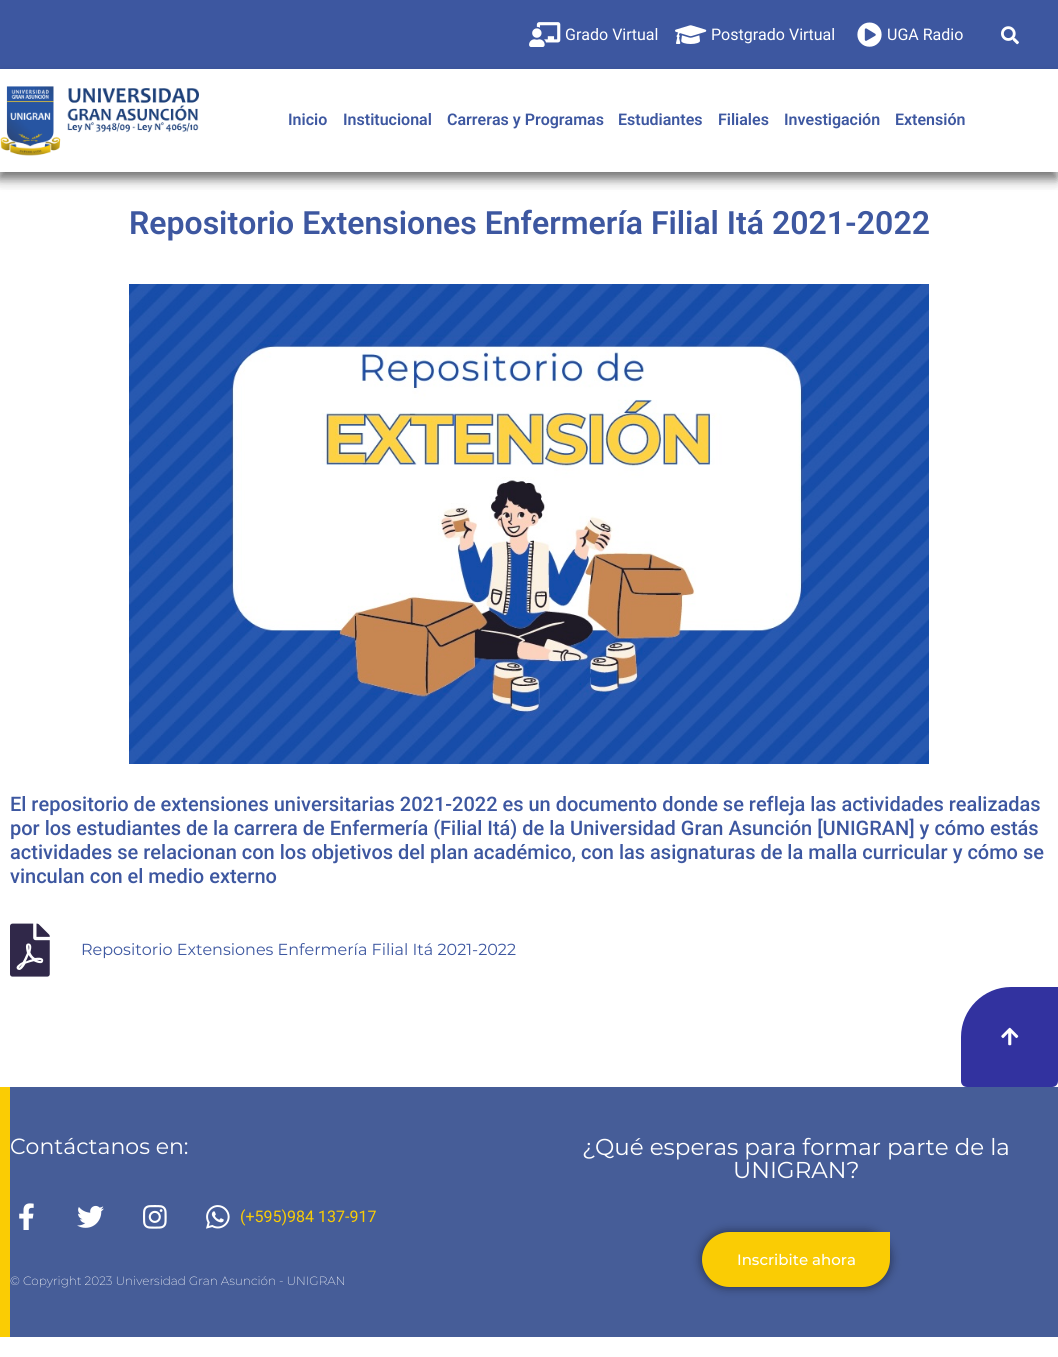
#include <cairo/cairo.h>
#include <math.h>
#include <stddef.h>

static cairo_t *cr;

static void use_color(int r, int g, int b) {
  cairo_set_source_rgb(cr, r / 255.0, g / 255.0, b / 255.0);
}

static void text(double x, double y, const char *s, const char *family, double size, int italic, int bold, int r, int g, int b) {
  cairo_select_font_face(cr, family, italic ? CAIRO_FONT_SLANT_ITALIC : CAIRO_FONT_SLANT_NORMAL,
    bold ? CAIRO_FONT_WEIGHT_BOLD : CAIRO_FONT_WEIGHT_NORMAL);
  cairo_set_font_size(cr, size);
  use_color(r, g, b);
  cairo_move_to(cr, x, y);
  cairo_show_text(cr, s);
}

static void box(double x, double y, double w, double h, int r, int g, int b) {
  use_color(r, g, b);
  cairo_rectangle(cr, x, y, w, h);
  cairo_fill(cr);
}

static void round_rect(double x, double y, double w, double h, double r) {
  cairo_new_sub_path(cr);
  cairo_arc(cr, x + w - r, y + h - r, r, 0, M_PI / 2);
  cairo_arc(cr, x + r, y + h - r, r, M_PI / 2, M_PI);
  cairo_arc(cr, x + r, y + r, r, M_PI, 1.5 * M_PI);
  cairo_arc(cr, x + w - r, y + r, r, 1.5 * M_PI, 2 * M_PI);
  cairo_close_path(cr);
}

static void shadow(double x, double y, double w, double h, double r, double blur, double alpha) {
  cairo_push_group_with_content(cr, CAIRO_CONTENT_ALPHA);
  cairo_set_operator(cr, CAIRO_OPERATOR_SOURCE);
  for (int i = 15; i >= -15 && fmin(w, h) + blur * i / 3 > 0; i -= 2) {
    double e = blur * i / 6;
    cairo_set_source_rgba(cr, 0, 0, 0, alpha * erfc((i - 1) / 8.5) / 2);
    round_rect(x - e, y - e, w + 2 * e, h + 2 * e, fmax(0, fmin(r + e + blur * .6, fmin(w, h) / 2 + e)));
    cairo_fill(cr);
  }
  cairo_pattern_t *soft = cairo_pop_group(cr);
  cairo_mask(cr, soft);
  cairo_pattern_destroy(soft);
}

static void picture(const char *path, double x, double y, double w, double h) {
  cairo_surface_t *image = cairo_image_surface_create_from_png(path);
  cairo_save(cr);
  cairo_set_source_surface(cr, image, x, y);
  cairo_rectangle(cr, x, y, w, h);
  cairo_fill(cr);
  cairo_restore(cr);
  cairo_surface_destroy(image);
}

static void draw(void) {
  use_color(255, 255, 255);
  cairo_paint(cr);
  cairo_save(cr);
  cairo_rectangle(cr, 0, 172, 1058, 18);
  cairo_clip(cr);
  use_color(0, 0, 0);
  shadow(0, 5, 1058, 172, 0, 15, 0.1);
  cairo_restore(cr);
  box(0, 0, 1058, 69, 61, 87, 160);
  picture("img_01.png", 529, 22, 32, 25);
  picture("img_02.png", 675, 25, 32, 19);
  picture("img_03.png", 857, 22, 25, 25);
  picture("img_04.png", 1001, 26, 18, 19);
  cairo_save(cr);
  cairo_set_fill_rule(cr, CAIRO_FILL_RULE_EVEN_ODD);
  cairo_new_path(cr);
  cairo_move_to(cr, 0, 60);
  cairo_line_to(cr, 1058, 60);
  cairo_line_to(cr, 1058, 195);
  cairo_line_to(cr, 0, 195);
  cairo_close_path(cr);
  cairo_move_to(cr, 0, 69);
  cairo_line_to(cr, 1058, 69);
  cairo_line_to(cr, 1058, 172);
  cairo_line_to(cr, 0, 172);
  cairo_close_path(cr);
  cairo_clip(cr);
  use_color(0, 0, 0);
  shadow(-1, 76, 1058, 103, 0, 5, 0.5);
  cairo_restore(cr);
  picture("img_05.png", 0, 86, 199, 70);
  picture("img_06.png", 129, 284, 800, 480);
  picture("img_07.png", 10, 923, 40, 54);
  use_color(50, 50, 159);
  cairo_new_path(cr);
  cairo_move_to(cr, 1011, 987);
  cairo_line_to(cr, 1058, 987);
  cairo_line_to(cr, 1058, 1081);
  cairo_curve_to(cr, 1058, 1084.5, 1055.5, 1087, 1052, 1087);
  cairo_line_to(cr, 967, 1087);
  cairo_curve_to(cr, 963.5, 1087, 961, 1084.5, 961, 1081);
  cairo_line_to(cr, 961, 1037);
  cairo_curve_to(cr, 961, 1009.5, 983.5, 987, 1011, 987);
  cairo_close_path(cr);
  cairo_fill(cr);
  picture("img_08.png", 1001, 1027, 18, 19);
  box(0, 1087, 10, 250, 250, 204, 4);
  box(10, 1087, 1048, 250, 70, 93, 152);
  picture("img_09.png", 19, 1203, 15, 27);
  picture("img_10.png", 77, 1205, 27, 23);
  picture("img_11.png", 143, 1205, 24, 24);
  picture("img_12.png", 206, 1205, 24, 24);
  use_color(0, 0, 0);
  shadow(702, 1232, 188, 55, 27.5, 5, 0.5);
  use_color(250, 204, 4);
  cairo_new_path(cr);
  cairo_move_to(cr, 729.5, 1232);
  cairo_line_to(cr, 890, 1232);
  cairo_line_to(cr, 890, 1259.5);
  cairo_curve_to(cr, 890, 1274.5, 877.5, 1287, 862.5, 1287);
  cairo_line_to(cr, 729.5, 1287);
  cairo_curve_to(cr, 714.5, 1287, 702, 1274.5, 702, 1259.5);
  cairo_curve_to(cr, 702, 1244.5, 714.5, 1232, 729.5, 1232);
  cairo_close_path(cr);
  cairo_fill(cr);
  text(565, 40, "Grado Virtual", "Roboto", 16, 0, 0, 255, 255, 255);
  text(711, 40, "Postgrado Virtual", "Roboto", 16, 0, 0, 255, 255, 255);
  text(887, 40, "UGA Radio", "Roboto", 16, 0, 0, 255, 255, 255);
  text(288, 125, "Inicio", "Roboto SemiBold", 16, 0, 0, 61, 87, 160);
  text(343, 125, "Institucional", "Roboto SemiBold", 16, 0, 0, 61, 87, 160);
  text(447, 125, "Carreras y Programas", "Roboto SemiBold", 16, 0, 0, 61, 87, 160);
  text(618, 125, "Estudiantes", "Roboto SemiBold", 16, 0, 0, 61, 87, 160);
  text(718, 125, "Filiales", "Roboto SemiBold", 16, 0, 0, 61, 87, 160);
  text(784, 125, "Investigación", "Roboto SemiBold", 16, 0, 0, 61, 87, 160);
  text(895, 125, "Extensión", "Roboto SemiBold", 16, 0, 0, 61, 87, 160);
  text(129, 234, "Repositorio Extensiones Enfermería Filial Itá 2021-2022", "Roboto SemiBold", 32, 0, 0, 61, 87, 160);
  text(10, 811, "El repositorio de extensiones universitarias 2021-2022 es un documento donde se refleja las actividades realizadas", "Roboto Medium", 20, 0, 0, 61, 87, 160);
  text(10, 835, "por los estudiantes de la carrera de Enfermería (Filial Itá) de la Universidad Gran Asunción [UNIGRAN] y cómo estás", "Roboto Medium", 20, 0, 0, 61, 87, 160);
  text(10, 859, "actividades se relacionan con los objetivos del plan académico, con las asignaturas de la malla curricular y cómo se", "Roboto Medium", 20, 0, 0, 61, 87, 160);
  text(10, 883, "vinculan con el medio externo", "Roboto Medium", 20, 0, 0, 61, 87, 160);
  text(81, 955, "Repositorio Extensiones Enfermería Filial Itá 2021-2022", "Montserrat", 16, 0, 0, 61, 87, 160);
  text(10, 1154, "Contáctanos en:", "Montserrat", 22, 0, 0, 255, 255, 255);
  text(240, 1222, "(+595)984 137-917", "Roboto", 16, 0, 0, 250, 204, 4);
  text(10, 1285, "© Copyright 2023 Universidad Gran Asunción - UNIGRAN", "Montserrat ExtraLight", 12, 0, 0, 255, 255, 255);
  text(582, 1155, "¿Qué esperas para formar parte de la", "Montserrat", 23, 0, 0, 255, 255, 255);
  text(733, 1178, "UNIGRAN?", "Montserrat", 23, 0, 0, 255, 255, 255);
  text(737, 1265, "Inscribite ahora", "Montserrat Medium", 15, 0, 0, 255, 255, 255);
}

int main(void) {
  cairo_surface_t *surface = cairo_image_surface_create(CAIRO_FORMAT_RGB24, 1058, 1357);
  cr = cairo_create(surface);
  cairo_font_options_t *options = cairo_font_options_create();
  cairo_font_options_set_hint_metrics(options, CAIRO_HINT_METRICS_OFF);
  cairo_font_options_set_hint_style(options, CAIRO_HINT_STYLE_NONE);
  cairo_set_font_options(cr, options);
  cairo_set_miter_limit(cr, 4);
  draw();
  cairo_surface_write_to_png(surface, "out.png");
  cairo_font_options_destroy(options);
  cairo_destroy(cr);
  cairo_surface_destroy(surface);
  return 0;
}
